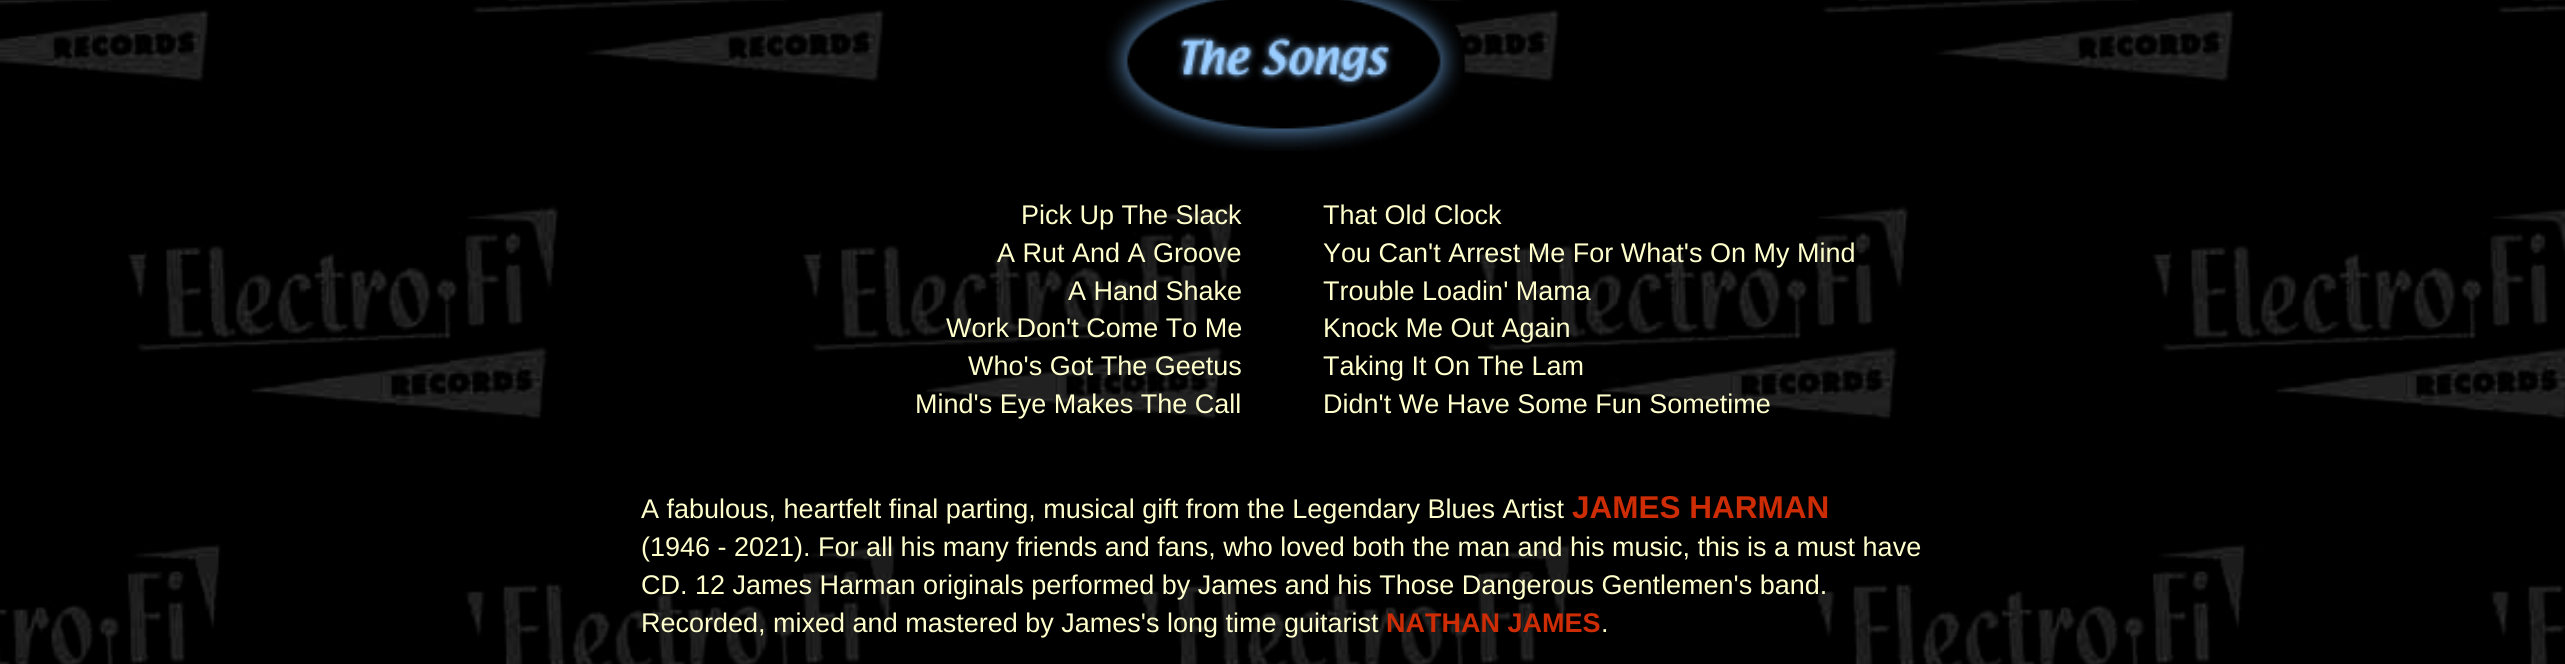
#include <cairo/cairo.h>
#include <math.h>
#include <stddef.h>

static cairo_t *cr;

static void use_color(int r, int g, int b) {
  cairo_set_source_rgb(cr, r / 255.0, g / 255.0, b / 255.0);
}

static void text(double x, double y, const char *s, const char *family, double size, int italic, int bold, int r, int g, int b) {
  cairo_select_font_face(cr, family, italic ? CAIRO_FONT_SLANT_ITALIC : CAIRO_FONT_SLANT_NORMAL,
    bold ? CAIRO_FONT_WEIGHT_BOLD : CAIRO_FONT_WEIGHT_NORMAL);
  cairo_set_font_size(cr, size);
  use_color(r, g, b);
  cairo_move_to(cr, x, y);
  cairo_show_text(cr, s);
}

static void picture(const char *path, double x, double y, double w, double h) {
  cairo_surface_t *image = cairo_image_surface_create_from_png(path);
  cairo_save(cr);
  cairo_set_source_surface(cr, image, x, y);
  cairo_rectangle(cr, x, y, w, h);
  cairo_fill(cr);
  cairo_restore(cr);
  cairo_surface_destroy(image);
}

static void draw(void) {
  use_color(255, 255, 255);
  cairo_paint(cr);
  picture("img_01.png", 0, 0, 2565, 664);
  picture("img_02.png", 1105, 0, 361, 151);
  text(1021, 224, "Pick Up The Slack", "Liberation Sans", 27, 0, 0, 255, 255, 204);
  text(997, 262, "A Rut And A Groove", "Liberation Sans", 27, 0, 0, 255, 255, 204);
  text(1068, 300, "A Hand Shake", "Liberation Sans", 27, 0, 0, 255, 255, 204);
  text(946, 337, "Work Don't Come To Me", "Liberation Sans", 27, 0, 0, 255, 255, 204);
  text(968, 375, "Who's Got The Geetus", "Liberation Sans", 27, 0, 0, 255, 255, 204);
  text(915, 413, "Mind's Eye Makes The Call", "Liberation Sans", 27, 0, 0, 255, 255, 204);
  text(1323, 224, "That Old Clock", "Liberation Sans", 27, 0, 0, 255, 255, 204);
  text(1323, 262, "You Can't Arrest Me For What's On My Mind", "Liberation Sans", 27, 0, 0, 255, 255, 204);
  text(1323, 300, "Trouble Loadin' Mama", "Liberation Sans", 27, 0, 0, 255, 255, 204);
  text(1323, 337, "Knock Me Out Again", "Liberation Sans", 27, 0, 0, 255, 255, 204);
  text(1323, 375, "Taking It On The Lam", "Liberation Sans", 27, 0, 0, 255, 255, 204);
  text(1323, 413, "Didn't We Have Some Fun Sometime", "Liberation Sans", 27, 0, 0, 255, 255, 204);
  text(641, 518, "A fabulous, heartfelt final parting, musical gift from the Legendary Blues Artist", "Liberation Sans", 27, 0, 0, 255, 255, 204);
  text(1572, 518, "JAMES HARMAN", "Liberation Sans", 31.5, 0, 1, 205, 44, 5);
  text(641, 556, "(1946 - 2021). For all his many friends and fans, who loved both the man and his music, this is a must have", "Liberation Sans", 27, 0, 0, 255, 255, 204);
  text(641, 594, "CD. 12 James Harman originals performed by James and his Those Dangerous Gentlemen's band.", "Liberation Sans", 27, 0, 0, 255, 255, 204);
  text(641, 632, "Recorded, mixed and mastered by James's long time guitarist", "Liberation Sans", 27, 0, 0, 255, 255, 204);
  text(1386, 632, "NATHAN JAMES", "Liberation Sans", 27, 0, 1, 205, 44, 5);
  text(1601, 632, ".", "Liberation Sans", 27, 0, 0, 255, 255, 204);
}

int main(void) {
  cairo_surface_t *surface = cairo_image_surface_create(CAIRO_FORMAT_RGB24, 2565, 664);
  cr = cairo_create(surface);
  cairo_font_options_t *options = cairo_font_options_create();
  cairo_font_options_set_hint_metrics(options, CAIRO_HINT_METRICS_OFF);
  cairo_font_options_set_hint_style(options, CAIRO_HINT_STYLE_NONE);
  cairo_set_font_options(cr, options);
  cairo_set_miter_limit(cr, 4);
  draw();
  cairo_surface_write_to_png(surface, "out.png");
  cairo_font_options_destroy(options);
  cairo_destroy(cr);
  cairo_surface_destroy(surface);
  return 0;
}
